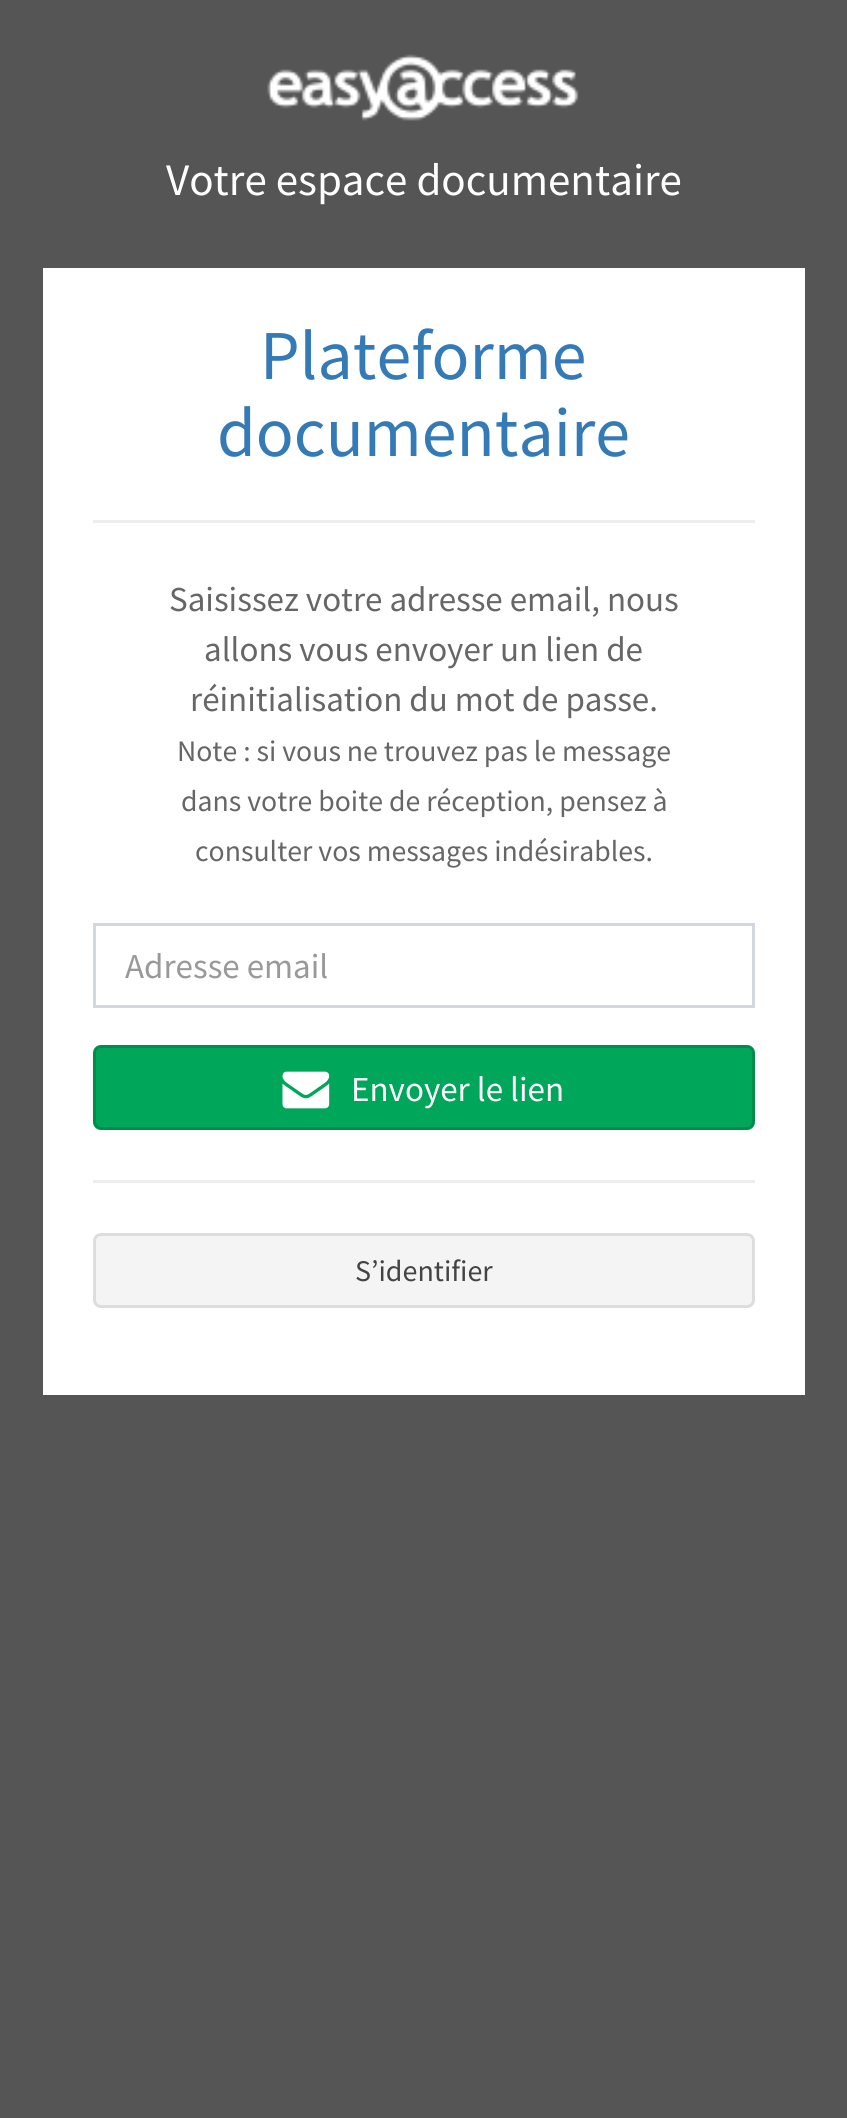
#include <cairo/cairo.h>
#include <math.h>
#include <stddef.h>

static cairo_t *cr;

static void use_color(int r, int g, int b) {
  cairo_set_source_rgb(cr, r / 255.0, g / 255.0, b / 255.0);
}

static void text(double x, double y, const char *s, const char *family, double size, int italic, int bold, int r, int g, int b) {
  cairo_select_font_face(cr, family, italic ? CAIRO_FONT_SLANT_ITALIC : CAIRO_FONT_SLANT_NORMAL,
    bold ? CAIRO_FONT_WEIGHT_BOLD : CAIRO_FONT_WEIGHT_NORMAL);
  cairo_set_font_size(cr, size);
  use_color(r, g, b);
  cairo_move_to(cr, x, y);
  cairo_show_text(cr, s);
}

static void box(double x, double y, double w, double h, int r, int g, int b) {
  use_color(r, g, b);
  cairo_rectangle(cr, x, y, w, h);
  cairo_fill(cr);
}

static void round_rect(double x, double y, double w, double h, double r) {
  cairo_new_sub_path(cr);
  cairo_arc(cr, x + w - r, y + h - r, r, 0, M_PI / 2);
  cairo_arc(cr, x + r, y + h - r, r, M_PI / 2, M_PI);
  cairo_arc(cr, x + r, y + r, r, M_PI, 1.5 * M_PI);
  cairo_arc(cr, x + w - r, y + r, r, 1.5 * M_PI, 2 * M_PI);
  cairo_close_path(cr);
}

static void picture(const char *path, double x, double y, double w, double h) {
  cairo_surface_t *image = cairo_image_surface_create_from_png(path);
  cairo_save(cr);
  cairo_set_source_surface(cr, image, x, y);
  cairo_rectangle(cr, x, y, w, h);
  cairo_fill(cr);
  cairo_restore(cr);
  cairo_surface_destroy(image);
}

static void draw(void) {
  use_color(85, 85, 85);
  cairo_paint(cr);
  picture("img_01.png", 267, 54, 312, 67);
  box(43, 268, 762, 1127, 255, 255, 255);
  box(93, 520, 662, 3, 238, 238, 238);
  cairo_rectangle(cr, 94.5, 924.5, 659, 82);
  use_color(210, 214, 222);
  cairo_set_line_width(cr, 3);
  cairo_stroke(cr);
  use_color(0, 166, 90);
  round_rect(94.5, 1046.5, 659, 82, 6.5);
  cairo_fill_preserve(cr);
  use_color(0, 141, 76);
  cairo_stroke(cr);
  picture("img_02.png", 282, 1071, 48, 38);
  box(93, 1180, 662, 3, 238, 238, 238);
  use_color(244, 244, 244);
  round_rect(94.5, 1234.5, 659, 72, 6.5);
  cairo_fill_preserve(cr);
  use_color(221, 221, 221);
  cairo_stroke(cr);
  text(166, 195, "Votre espace documentaire", "Source Sans Pro", 45, 0, 0, 255, 255, 255);
  text(260, 379, "Plateforme", "Source Sans Pro", 70, 0, 0, 51, 122, 183);
  text(217, 456, "documentaire", "Source Sans Pro", 70, 0, 0, 51, 122, 183);
  text(169, 611, "Saisissez votre adresse email, nous", "Source Sans Pro", 35, 0, 0, 102, 102, 102);
  text(204, 661, "allons vous envoyer un lien de", "Source Sans Pro", 35, 0, 0, 102, 102, 102);
  text(190, 711, "réinitialisation du mot de passe.", "Source Sans Pro", 35, 0, 0, 102, 102, 102);
  text(177, 761, "Note : si vous ne trouvez pas le message", "Source Sans Pro", 29.75, 0, 0, 102, 102, 102);
  text(181, 811, "dans votre boite de réception, pensez à", "Source Sans Pro", 29.75, 0, 0, 102, 102, 102);
  text(195, 861, "consulter vos messages indésirables.", "Source Sans Pro", 29.75, 0, 0, 102, 102, 102);
  text(125, 978, "Adresse email", "Source Sans Pro", 35, 0, 0, 153, 153, 153);
  text(351, 1101, "Envoyer le lien", "Source Sans Pro", 35, 0, 0, 255, 255, 255);
  text(355, 1281, "S’identifier", "Source Sans Pro", 30, 0, 0, 68, 68, 68);
}

int main(void) {
  cairo_surface_t *surface = cairo_image_surface_create(CAIRO_FORMAT_RGB24, 847, 2118);
  cr = cairo_create(surface);
  cairo_font_options_t *options = cairo_font_options_create();
  cairo_font_options_set_hint_metrics(options, CAIRO_HINT_METRICS_OFF);
  cairo_font_options_set_hint_style(options, CAIRO_HINT_STYLE_NONE);
  cairo_set_font_options(cr, options);
  cairo_set_miter_limit(cr, 4);
  draw();
  cairo_surface_write_to_png(surface, "out.png");
  cairo_font_options_destroy(options);
  cairo_destroy(cr);
  cairo_surface_destroy(surface);
  return 0;
}
